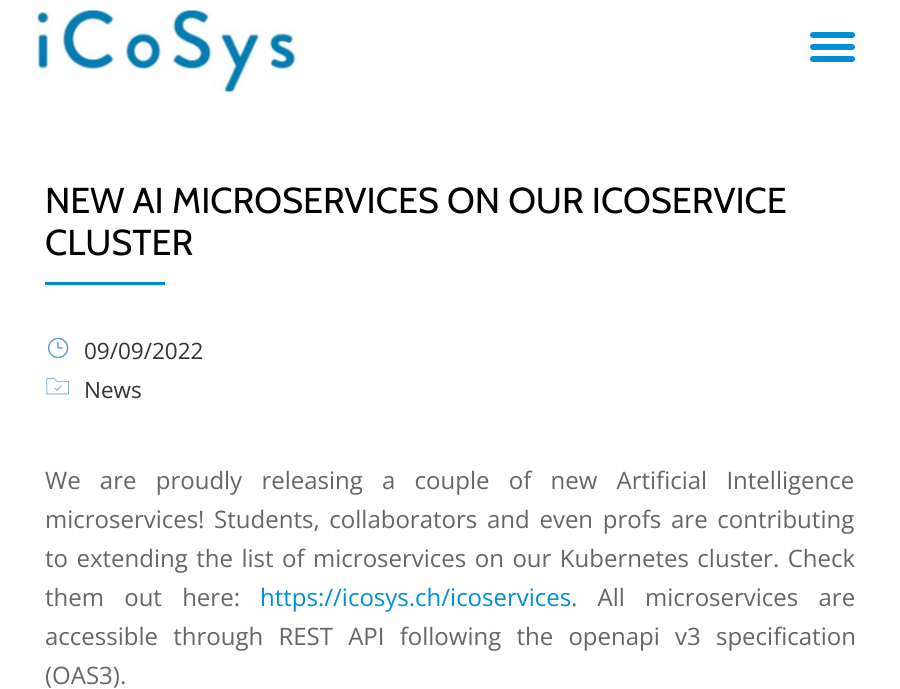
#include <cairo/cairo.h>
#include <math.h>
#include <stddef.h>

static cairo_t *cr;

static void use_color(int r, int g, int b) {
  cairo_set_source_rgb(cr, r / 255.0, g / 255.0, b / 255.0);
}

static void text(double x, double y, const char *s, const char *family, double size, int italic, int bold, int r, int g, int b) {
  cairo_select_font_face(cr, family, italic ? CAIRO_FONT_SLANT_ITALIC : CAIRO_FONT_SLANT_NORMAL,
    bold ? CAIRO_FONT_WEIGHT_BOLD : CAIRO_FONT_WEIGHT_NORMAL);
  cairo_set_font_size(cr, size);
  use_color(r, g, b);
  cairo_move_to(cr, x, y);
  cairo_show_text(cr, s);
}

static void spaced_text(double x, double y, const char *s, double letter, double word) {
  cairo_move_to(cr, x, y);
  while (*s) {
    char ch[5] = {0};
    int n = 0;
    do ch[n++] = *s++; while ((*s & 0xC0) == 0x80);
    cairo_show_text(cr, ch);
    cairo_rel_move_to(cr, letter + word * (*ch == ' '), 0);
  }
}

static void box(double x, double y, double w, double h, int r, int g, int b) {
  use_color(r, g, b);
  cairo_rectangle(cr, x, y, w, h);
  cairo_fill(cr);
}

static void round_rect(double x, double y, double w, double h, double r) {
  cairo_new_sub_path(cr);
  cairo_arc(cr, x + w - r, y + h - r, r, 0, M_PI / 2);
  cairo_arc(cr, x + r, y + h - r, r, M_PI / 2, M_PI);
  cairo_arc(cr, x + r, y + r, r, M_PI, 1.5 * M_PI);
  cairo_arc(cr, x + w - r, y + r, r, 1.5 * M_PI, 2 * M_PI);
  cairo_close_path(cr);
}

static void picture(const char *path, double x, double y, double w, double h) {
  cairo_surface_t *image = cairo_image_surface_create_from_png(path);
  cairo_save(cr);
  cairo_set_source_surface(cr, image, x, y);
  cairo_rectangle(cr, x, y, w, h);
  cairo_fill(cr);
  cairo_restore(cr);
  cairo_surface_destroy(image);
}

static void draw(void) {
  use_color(255, 255, 255);
  cairo_paint(cr);
  picture("img_01.png", 35, 10, 262, 84);
  use_color(0, 142, 214);
  round_rect(810, 32, 45, 6, 3);
  cairo_fill(cr);
  round_rect(810, 44, 45, 6, 3);
  cairo_fill(cr);
  round_rect(810, 56, 45, 6, 3);
  cairo_fill(cr);
  box(45, 282, 120, 3, 0, 142, 214);
  picture("img_02.png", 48, 337, 21, 22);
  picture("img_03.png", 46, 378, 23, 17);
  text(45, 213, "NEW AI MICROSERVICES ON OUR ICOSERVICE", "Cabin", 36, 0, 0, 0, 0, 0);
  text(45, 255, "CLUSTER", "Cabin", 36, 0, 0, 0, 0, 0);
  text(84, 359, "09/09/2022", "Open Sans", 22.5, 0, 0, 51, 51, 51);
  text(84, 398, "News", "Open Sans", 22.5, 0, 0, 51, 51, 51);
  cairo_set_font_size(cr, 24);
  use_color(102, 102, 102);
  spaced_text(45, 489, "We are proudly releasing a couple of new Artificial Intelligence", 0, 13);
  text(45, 528, "microservices", "Open Sans", 24, 0, 0, 102, 102, 102);
  spaced_text(198, 528, "! Students, collaborators and even profs are contributing", 0, 3.5);
  spaced_text(45, 567, "to extending the list of microservices on our Kubernetes cluster. Check", 0, 2.25);
  spaced_text(45, 606, "them out here:", 0, 14);
  text(260, 606, "https://icosys.ch/icoservices", "Open Sans", 24, 0, 0, 0, 142, 214);
  use_color(102, 102, 102);
  spaced_text(571, 606, ". All microservices are", 0, 14);
  spaced_text(45, 645, "accessible through REST API following the openapi v3 specification", 0, 9);
  text(45, 684, "(OAS3).", "Open Sans", 24, 0, 0, 102, 102, 102);
}

int main(void) {
  cairo_surface_t *surface = cairo_image_surface_create(CAIRO_FORMAT_RGB24, 900, 689);
  cr = cairo_create(surface);
  cairo_font_options_t *options = cairo_font_options_create();
  cairo_font_options_set_hint_metrics(options, CAIRO_HINT_METRICS_OFF);
  cairo_font_options_set_hint_style(options, CAIRO_HINT_STYLE_NONE);
  cairo_set_font_options(cr, options);
  cairo_set_miter_limit(cr, 4);
  draw();
  cairo_surface_write_to_png(surface, "out.png");
  cairo_font_options_destroy(options);
  cairo_destroy(cr);
  cairo_surface_destroy(surface);
  return 0;
}
